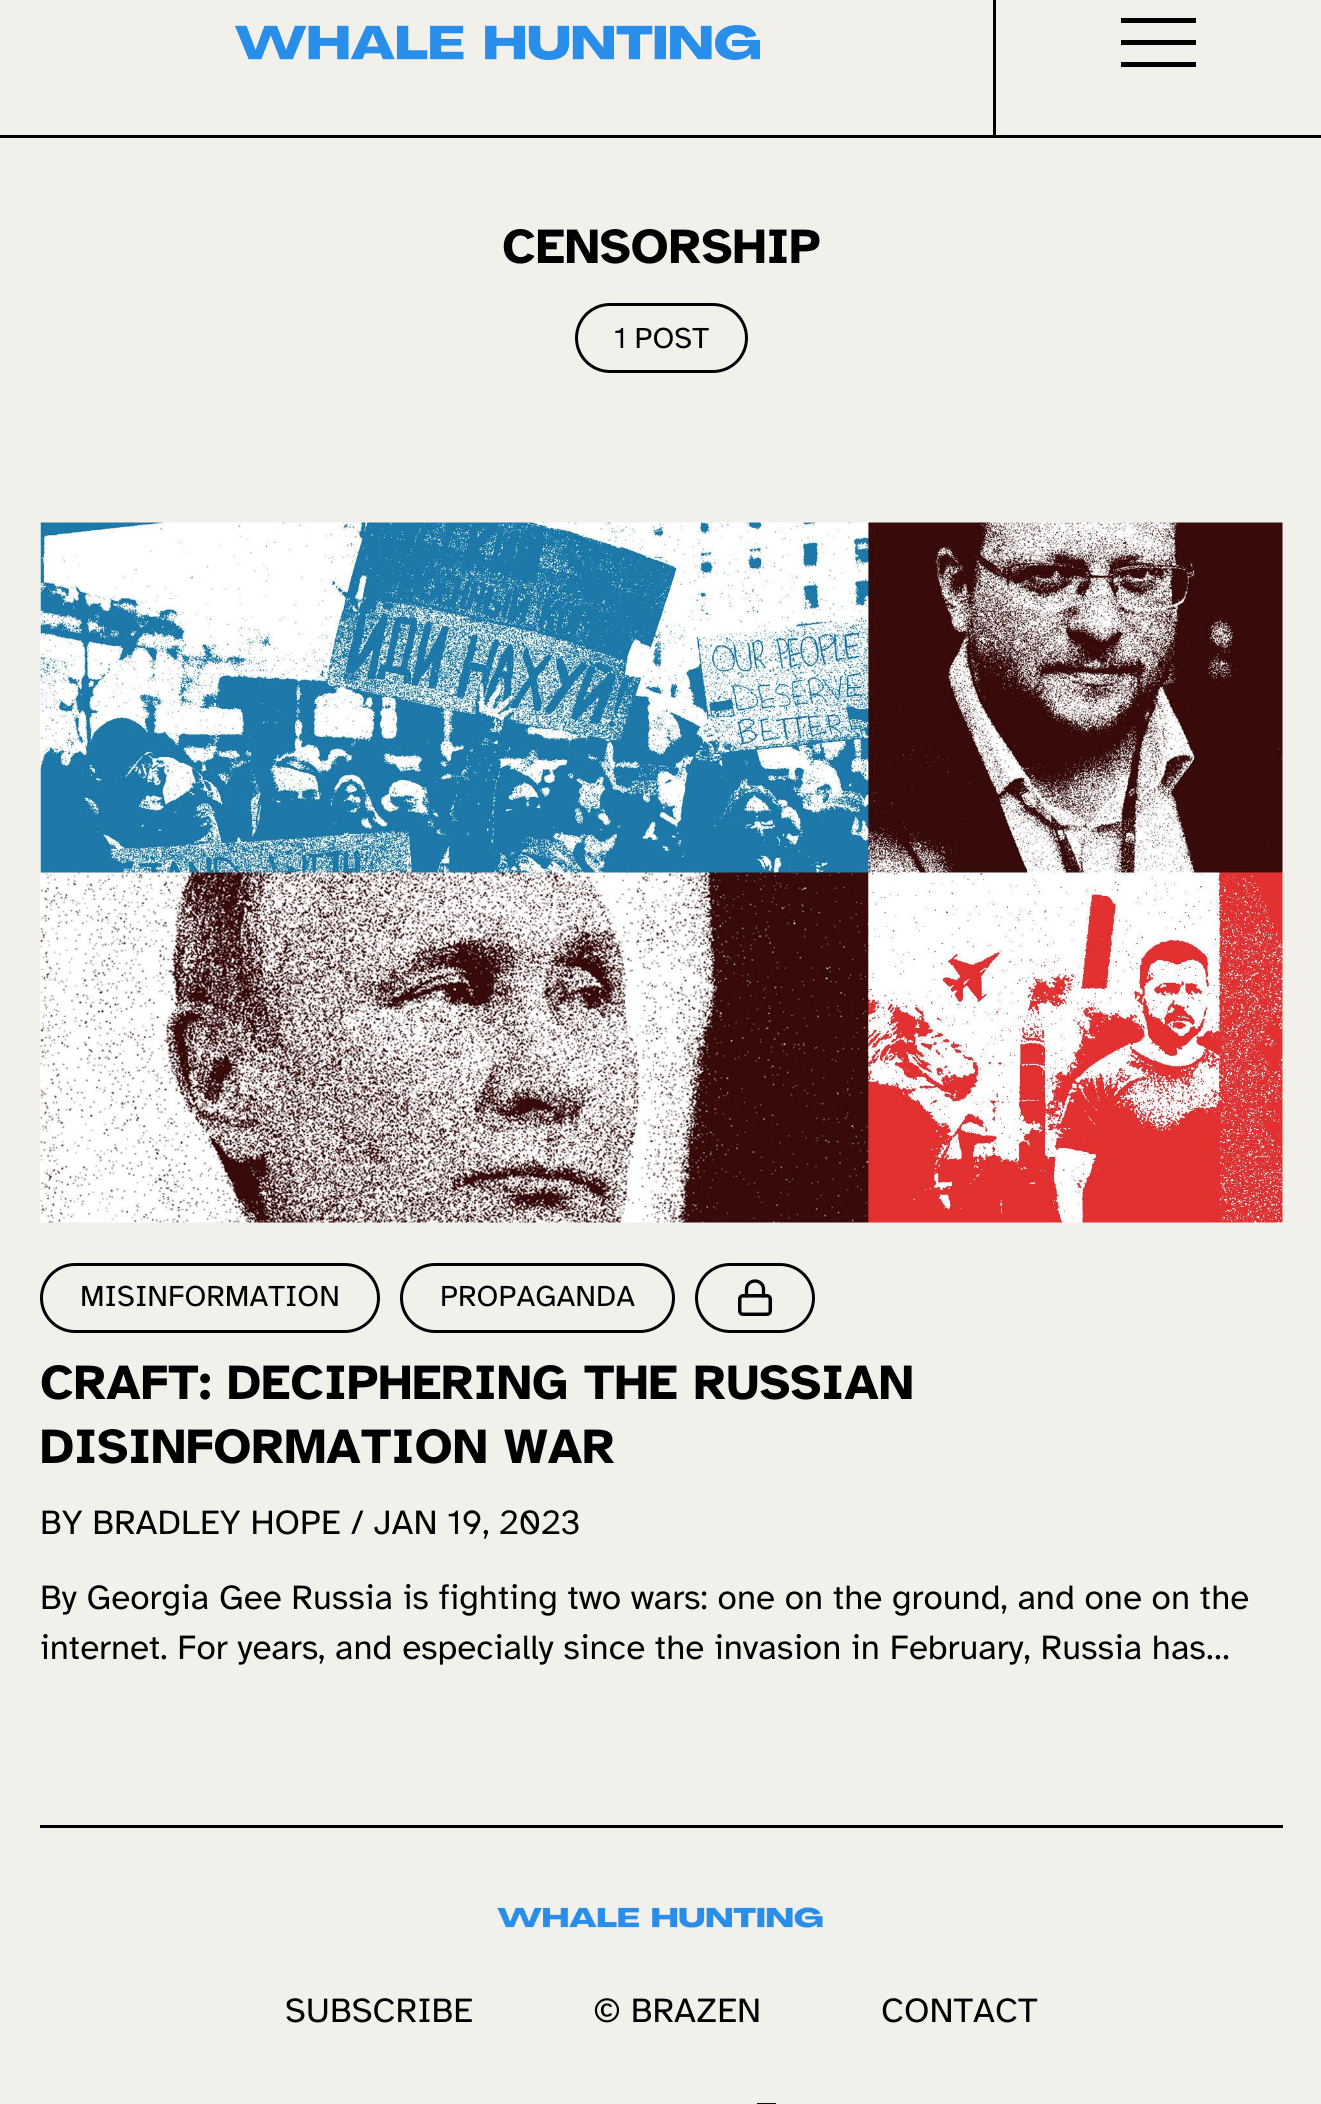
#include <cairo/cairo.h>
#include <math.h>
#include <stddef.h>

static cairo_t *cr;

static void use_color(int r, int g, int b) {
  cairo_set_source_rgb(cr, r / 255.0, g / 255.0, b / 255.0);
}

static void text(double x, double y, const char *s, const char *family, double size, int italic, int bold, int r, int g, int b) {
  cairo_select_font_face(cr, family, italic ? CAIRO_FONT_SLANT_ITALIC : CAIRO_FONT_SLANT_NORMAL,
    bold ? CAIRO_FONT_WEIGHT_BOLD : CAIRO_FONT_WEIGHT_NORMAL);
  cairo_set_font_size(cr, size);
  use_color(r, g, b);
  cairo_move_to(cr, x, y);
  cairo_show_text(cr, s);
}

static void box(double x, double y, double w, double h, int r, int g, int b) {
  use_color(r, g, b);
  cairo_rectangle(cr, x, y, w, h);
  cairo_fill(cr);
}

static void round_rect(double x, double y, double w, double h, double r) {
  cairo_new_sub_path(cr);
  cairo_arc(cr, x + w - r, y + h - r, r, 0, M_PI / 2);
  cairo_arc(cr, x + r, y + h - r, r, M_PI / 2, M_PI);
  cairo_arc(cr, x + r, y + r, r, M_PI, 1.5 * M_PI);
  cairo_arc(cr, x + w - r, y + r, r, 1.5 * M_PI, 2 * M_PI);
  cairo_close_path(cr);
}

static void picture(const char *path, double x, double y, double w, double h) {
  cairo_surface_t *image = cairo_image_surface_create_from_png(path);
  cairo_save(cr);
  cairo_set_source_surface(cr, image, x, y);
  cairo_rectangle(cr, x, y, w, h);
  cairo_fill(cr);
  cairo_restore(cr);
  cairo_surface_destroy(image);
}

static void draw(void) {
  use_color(242, 240, 235);
  cairo_paint(cr);
  box(0, 135, 1321, 3, 0, 0, 0);
  box(993, 0, 3, 135, 0, 0, 0);
  picture("img_01.png", 235, 25, 525, 35);
  box(1121, 18, 75, 5, 0, 0, 0);
  box(1121, 40, 75, 5, 0, 0, 0);
  box(1121, 62, 75, 5, 0, 0, 0);
  round_rect(576.5, 304.5, 170, 67, 33.5);
  cairo_set_line_width(cr, 3);
  cairo_stroke(cr);
  picture("img_02.png", 40, 522, 1243, 701);
  round_rect(41.5, 1264.5, 337, 67, 33.5);
  cairo_stroke(cr);
  round_rect(401.5, 1264.5, 272, 67, 33.5);
  cairo_stroke(cr);
  round_rect(696.5, 1264.5, 117, 67, 33.5);
  cairo_stroke(cr);
  round_rect(739.75, 1295.75, 30.5, 18.5, 3.25);
  cairo_set_line_width(cr, 3.5);
  cairo_stroke(cr);
  cairo_new_path(cr);
  cairo_move_to(cr, 746.5, 1296);
  cairo_line_to(cr, 746.5, 1289);
  cairo_curve_to(cr, 746.5, 1284.5, 750.5, 1281, 755, 1281);
  cairo_curve_to(cr, 759.5, 1281, 763.5, 1284.5, 763.5, 1289);
  cairo_line_to(cr, 763.5, 1296);
  cairo_set_line_width(cr, 3.3);
  cairo_set_line_cap(cr, CAIRO_LINE_CAP_ROUND);
  cairo_set_line_join(cr, CAIRO_LINE_JOIN_ROUND);
  cairo_stroke(cr);
  box(40, 1825, 1243, 3, 0, 0, 0);
  picture("img_03.png", 497, 1907, 326, 21);
  cairo_new_path(cr);
  cairo_move_to(cr, 754, 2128);
  cairo_line_to(cr, 776, 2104.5);
  cairo_move_to(cr, 776, 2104.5);
  cairo_line_to(cr, 776, 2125);
  cairo_move_to(cr, 776, 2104.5);
  cairo_line_to(cr, 757, 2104.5);
  cairo_set_line_width(cr, 2.9);
  cairo_set_line_cap(cr, CAIRO_LINE_CAP_BUTT);
  cairo_set_line_join(cr, CAIRO_LINE_JOIN_MITER);
  cairo_stroke(cr);
  text(502, 263, "CENSORSHIP", "Atkinson Hyperlegible", 50, 0, 1, 0, 0, 0);
  text(614, 348, "1 POST", "Atkinson Hyperlegible", 30, 0, 0, 0, 0, 0);
  text(80, 1306, "MISINFORMATION", "Atkinson Hyperlegible", 30, 0, 0, 0, 0, 0);
  text(440, 1306, "PROPAGANDA", "Atkinson Hyperlegible", 30, 0, 0, 0, 0, 0);
  text(40, 1399, "CRAFT: DECIPHERING THE RUSSIAN", "Atkinson Hyperlegible", 50, 0, 1, 0, 0, 0);
  text(40, 1463, "DISINFORMATION WAR", "Atkinson Hyperlegible", 50, 0, 1, 0, 0, 0);
  text(40, 1534, "BY BRADLEY HOPE / JAN 19, 2023", "Atkinson Hyperlegible", 35, 0, 0, 0, 0, 0);
  text(40, 1609, "By Georgia Gee Russia is fighting two wars: one on the ground, and one on the", "Atkinson Hyperlegible", 35, 0, 0, 0, 0, 0);
  text(40, 1659, "internet. For years, and especially since the invasion in February, Russia has…", "Atkinson Hyperlegible", 35, 0, 0, 0, 0, 0);
  text(285, 2022, "SUBSCRIBE", "Atkinson Hyperlegible", 35, 0, 0, 0, 0, 0);
  text(593, 2022, "© BRAZEN", "Atkinson Hyperlegible", 35, 0, 0, 0, 0, 0);
  text(881, 2022, "CONTACT", "Atkinson Hyperlegible", 35, 0, 0, 0, 0, 0);
}

int main(void) {
  cairo_surface_t *surface = cairo_image_surface_create(CAIRO_FORMAT_RGB24, 1321, 2104);
  cr = cairo_create(surface);
  cairo_font_options_t *options = cairo_font_options_create();
  cairo_font_options_set_hint_metrics(options, CAIRO_HINT_METRICS_OFF);
  cairo_font_options_set_hint_style(options, CAIRO_HINT_STYLE_NONE);
  cairo_set_font_options(cr, options);
  cairo_set_miter_limit(cr, 4);
  draw();
  cairo_surface_write_to_png(surface, "out.png");
  cairo_font_options_destroy(options);
  cairo_destroy(cr);
  cairo_surface_destroy(surface);
  return 0;
}
